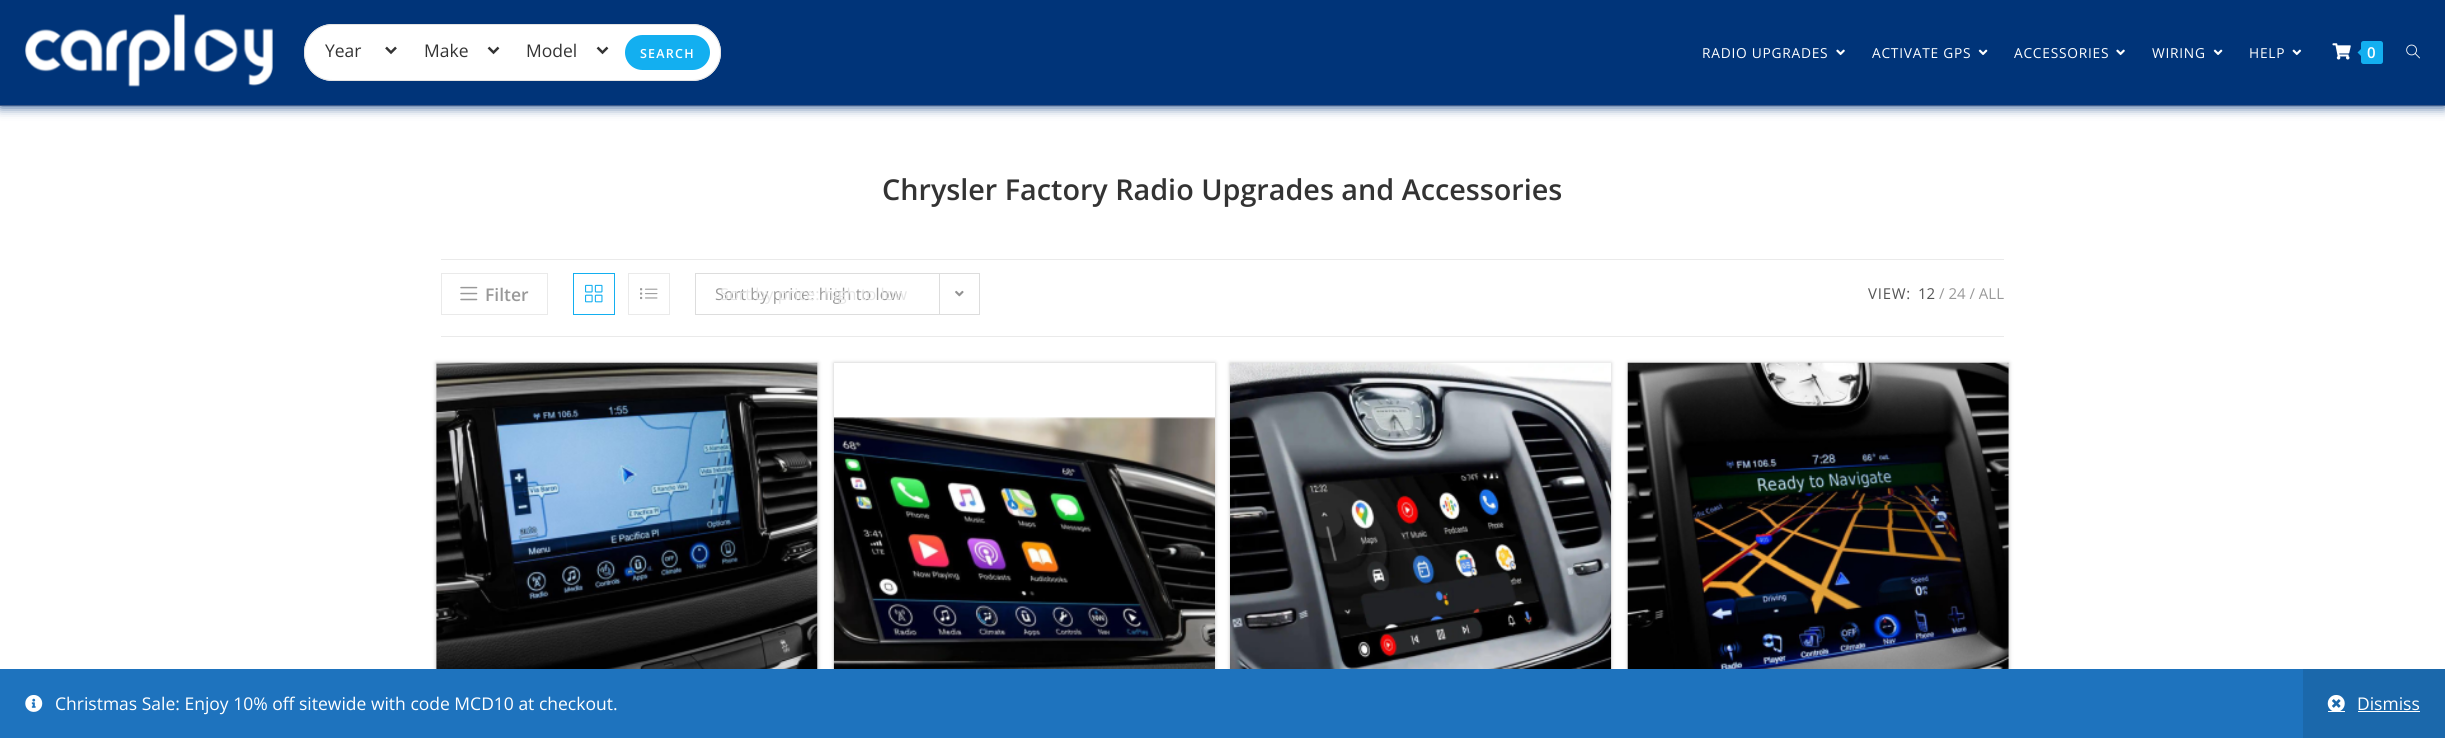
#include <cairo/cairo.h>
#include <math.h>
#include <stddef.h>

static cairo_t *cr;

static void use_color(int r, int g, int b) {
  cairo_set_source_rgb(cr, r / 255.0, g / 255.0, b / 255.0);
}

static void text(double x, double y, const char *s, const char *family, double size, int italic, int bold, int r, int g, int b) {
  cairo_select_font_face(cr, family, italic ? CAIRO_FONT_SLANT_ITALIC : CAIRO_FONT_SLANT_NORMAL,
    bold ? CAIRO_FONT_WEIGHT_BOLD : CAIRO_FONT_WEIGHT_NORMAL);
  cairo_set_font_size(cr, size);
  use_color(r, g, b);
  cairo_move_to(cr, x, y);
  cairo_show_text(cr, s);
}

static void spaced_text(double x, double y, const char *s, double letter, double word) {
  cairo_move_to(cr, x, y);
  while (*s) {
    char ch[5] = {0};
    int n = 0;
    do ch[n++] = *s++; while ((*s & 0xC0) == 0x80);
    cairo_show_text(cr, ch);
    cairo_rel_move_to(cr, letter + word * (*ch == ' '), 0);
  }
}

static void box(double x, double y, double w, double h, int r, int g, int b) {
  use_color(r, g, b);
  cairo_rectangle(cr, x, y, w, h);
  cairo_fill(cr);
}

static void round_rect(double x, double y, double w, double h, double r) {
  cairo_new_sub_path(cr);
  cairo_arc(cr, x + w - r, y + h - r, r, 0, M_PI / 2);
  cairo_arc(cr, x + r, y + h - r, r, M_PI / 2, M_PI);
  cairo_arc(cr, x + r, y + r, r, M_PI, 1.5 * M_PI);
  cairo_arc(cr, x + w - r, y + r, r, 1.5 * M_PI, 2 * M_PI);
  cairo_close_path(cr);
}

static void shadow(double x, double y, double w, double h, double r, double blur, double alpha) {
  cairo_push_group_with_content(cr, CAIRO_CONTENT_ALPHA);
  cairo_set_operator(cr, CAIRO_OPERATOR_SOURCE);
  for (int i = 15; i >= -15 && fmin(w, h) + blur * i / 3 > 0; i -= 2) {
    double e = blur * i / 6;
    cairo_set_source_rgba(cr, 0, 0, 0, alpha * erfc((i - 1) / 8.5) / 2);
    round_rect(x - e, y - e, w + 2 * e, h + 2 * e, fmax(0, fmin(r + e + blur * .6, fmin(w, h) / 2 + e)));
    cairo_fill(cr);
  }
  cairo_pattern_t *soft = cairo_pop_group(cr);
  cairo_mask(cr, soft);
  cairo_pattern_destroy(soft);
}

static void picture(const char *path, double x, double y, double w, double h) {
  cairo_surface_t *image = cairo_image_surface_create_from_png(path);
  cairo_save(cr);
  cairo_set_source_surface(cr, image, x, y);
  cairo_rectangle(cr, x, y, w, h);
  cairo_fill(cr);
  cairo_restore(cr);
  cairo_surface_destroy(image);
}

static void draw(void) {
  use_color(255, 255, 255);
  cairo_paint(cr);
  use_color(0, 52, 121);
  shadow(0, 0, 2445, 106, 0, 6, 1);
  box(0, 0, 2445, 105, 0, 52, 121);
  box(0, 105, 2445, 1, 63, 91, 137);
  picture("img_01.png", 25, 14, 248, 73);
  use_color(255, 255, 255);
  round_rect(304, 24, 417, 57, 28.5);
  cairo_fill(cr);
  round_rect(304.5, 24.5, 416, 56, 28);
  cairo_set_source_rgba(cr, 0.886, 0.886, 0.886, 0.98);
  cairo_set_line_width(cr, 1);
  cairo_stroke(cr);
  cairo_new_path(cr);
  cairo_move_to(cr, 386, 47.5);
  cairo_line_to(cr, 391, 52.5);
  cairo_line_to(cr, 396, 47.5);
  use_color(51, 51, 51);
  cairo_set_line_width(cr, 2.5);
  cairo_stroke(cr);
  cairo_new_path(cr);
  cairo_move_to(cr, 488.5, 47.5);
  cairo_line_to(cr, 493.5, 52.5);
  cairo_line_to(cr, 498.5, 47.5);
  cairo_stroke(cr);
  cairo_new_path(cr);
  cairo_move_to(cr, 597.5, 47.5);
  cairo_line_to(cr, 602.5, 52.5);
  cairo_line_to(cr, 607.5, 47.5);
  cairo_stroke(cr);
  use_color(19, 175, 240);
  round_rect(625, 35, 85, 35, 17.5);
  cairo_fill(cr);
  picture("img_02.png", 1836, 49, 9, 7);
  picture("img_03.png", 1978, 49, 10, 6);
  picture("img_02.png", 2116, 49, 9, 7);
  picture("img_03.png", 2213, 49, 10, 6);
  picture("img_04.png", 2292, 49, 10, 7);
  picture("img_05.png", 2332, 43, 19, 17);
  round_rect(2361, 41, 22, 23, 2.5);
  cairo_fill(cr);
  cairo_new_path(cr);
  cairo_move_to(cr, 2364, 46);
  cairo_line_to(cr, 2364, 59);
  cairo_line_to(cr, 2357.5, 52.5);
  cairo_close_path(cr);
  cairo_fill(cr);
  picture("img_06.png", 2406, 44, 14, 15);
  box(441, 259, 1563, 1, 234, 234, 234);
  box(441, 336, 1563, 1, 234, 234, 234);
  cairo_rectangle(cr, 441.5, 273.5, 106, 41);
  cairo_set_line_width(cr, 1);
  cairo_stroke(cr);
  picture("img_07.png", 460, 286, 18, 15);
  cairo_rectangle(cr, 573.5, 273.5, 41, 41);
  use_color(19, 175, 240);
  cairo_stroke(cr);
  picture("img_08.png", 585, 284, 18, 19);
  cairo_rectangle(cr, 628.5, 273.5, 41, 41);
  use_color(234, 234, 234);
  cairo_stroke(cr);
  picture("img_09.png", 640, 288, 18, 12);
  cairo_rectangle(cr, 695.5, 273.5, 284, 41);
  use_color(221, 221, 221);
  cairo_stroke(cr);
  box(939, 274, 1, 40, 221, 221, 221);
  picture("img_10.png", 955, 290, 9, 7);
  use_color(197, 197, 197);
  shadow(436, 363, 382, 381, 0, 2, 1);
  picture("img_11.png", 436, 362, 382, 307);
  cairo_save(cr);
  cairo_set_fill_rule(cr, CAIRO_FILL_RULE_EVEN_ODD);
  cairo_new_path(cr);
  cairo_move_to(cr, 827, 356);
  cairo_line_to(cr, 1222, 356);
  cairo_line_to(cr, 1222, 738);
  cairo_line_to(cr, 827, 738);
  cairo_close_path(cr);
  cairo_move_to(cr, 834, 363);
  cairo_line_to(cr, 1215, 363);
  cairo_line_to(cr, 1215, 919);
  cairo_line_to(cr, 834, 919);
  cairo_close_path(cr);
  cairo_clip(cr);
  shadow(834, 363, 381, 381, 0, 2, 1);
  cairo_restore(cr);
  picture("img_12.png", 833, 417, 382, 252);
  shadow(1230, 363, 381, 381, 0, 2, 1);
  picture("img_13.png", 1230, 362, 382, 307);
  shadow(1628, 363, 381, 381, 0, 2, 1);
  picture("img_14.png", 1627, 362, 382, 307);
  box(0, 669, 2303, 69, 30, 115, 190);
  picture("img_15.png", 25, 695, 18, 17);
  box(2303, 669, 142, 69, 27, 104, 171);
  picture("img_16.png", 2327, 695, 18, 16);
  box(2358, 711, 62, 1, 255, 255, 255);
  box(2328, 711, 17, 1, 255, 255, 255);
  text(325, 57, "Year", "Open Sans", 17.5, 0, 0, 51, 51, 51);
  text(424, 57, "Make", "Open Sans", 17.5, 0, 0, 51, 51, 51);
  text(526, 57, "Model", "Open Sans", 17.5, 0, 0, 51, 51, 51);
  cairo_select_font_face(cr, "Open Sans SemiBold", CAIRO_FONT_SLANT_NORMAL, CAIRO_FONT_WEIGHT_NORMAL);
  cairo_set_font_size(cr, 12.5);
  use_color(255, 255, 255);
  spaced_text(640, 58, "SEARCH", 1.25, 0);
  cairo_select_font_face(cr, "Open Sans", CAIRO_FONT_SLANT_NORMAL, CAIRO_FONT_WEIGHT_NORMAL);
  cairo_set_font_size(cr, 13.75);
  spaced_text(1702, 58, "RADIO UPGRADES", 0.75, 0);
  spaced_text(1872, 58, "ACTIVATE GPS", 0.75, 0);
  spaced_text(2014, 58, "ACCESSORIES", 0.75, 0);
  spaced_text(2152, 58, "WIRING", 0.75, 0);
  spaced_text(2249, 58, "HELP", 0.75, 0);
  text(2367, 58, "0", "Open Sans SemiBold", 15, 0, 0, 255, 255, 255);
  text(882, 200, "Chrysler Factory Radio Upgrades and Accessories", "Open Sans SemiBold", 28.75, 0, 0, 51, 51, 51);
  text(485, 301, "Filter", "Open Sans SemiBold", 17.5, 0, 0, 153, 153, 153);
  text(715, 300, "Sort by price: high to low", "Open Sans", 16.25, 0, 0, 153, 153, 153);
  text(720, 300, "Sort by price: high to low", "Open Sans", 16.25, 0, 0, 229, 229, 229);
  cairo_set_font_size(cr, 15);
  use_color(85, 85, 85);
  spaced_text(1868, 299, "VIEW:", 0.75, 0);
  text(1918, 299, "12", "Open Sans", 15, 0, 0, 85, 85, 85);
  text(1939, 299, "/ 24 / ALL", "Open Sans", 15, 0, 0, 153, 153, 153);
  text(55, 710, "Christmas Sale: Enjoy 10% off sitewide with code MCD10 at checkout.", "Open Sans", 17.5, 0, 0, 255, 255, 255);
  text(2357, 710, "Dismiss", "Open Sans", 17.5, 0, 0, 255, 255, 255);
}

int main(void) {
  cairo_surface_t *surface = cairo_image_surface_create(CAIRO_FORMAT_RGB24, 2445, 738);
  cr = cairo_create(surface);
  cairo_font_options_t *options = cairo_font_options_create();
  cairo_font_options_set_hint_metrics(options, CAIRO_HINT_METRICS_OFF);
  cairo_font_options_set_hint_style(options, CAIRO_HINT_STYLE_NONE);
  cairo_set_font_options(cr, options);
  cairo_set_miter_limit(cr, 4);
  draw();
  cairo_surface_write_to_png(surface, "out.png");
  cairo_font_options_destroy(options);
  cairo_destroy(cr);
  cairo_surface_destroy(surface);
  return 0;
}
